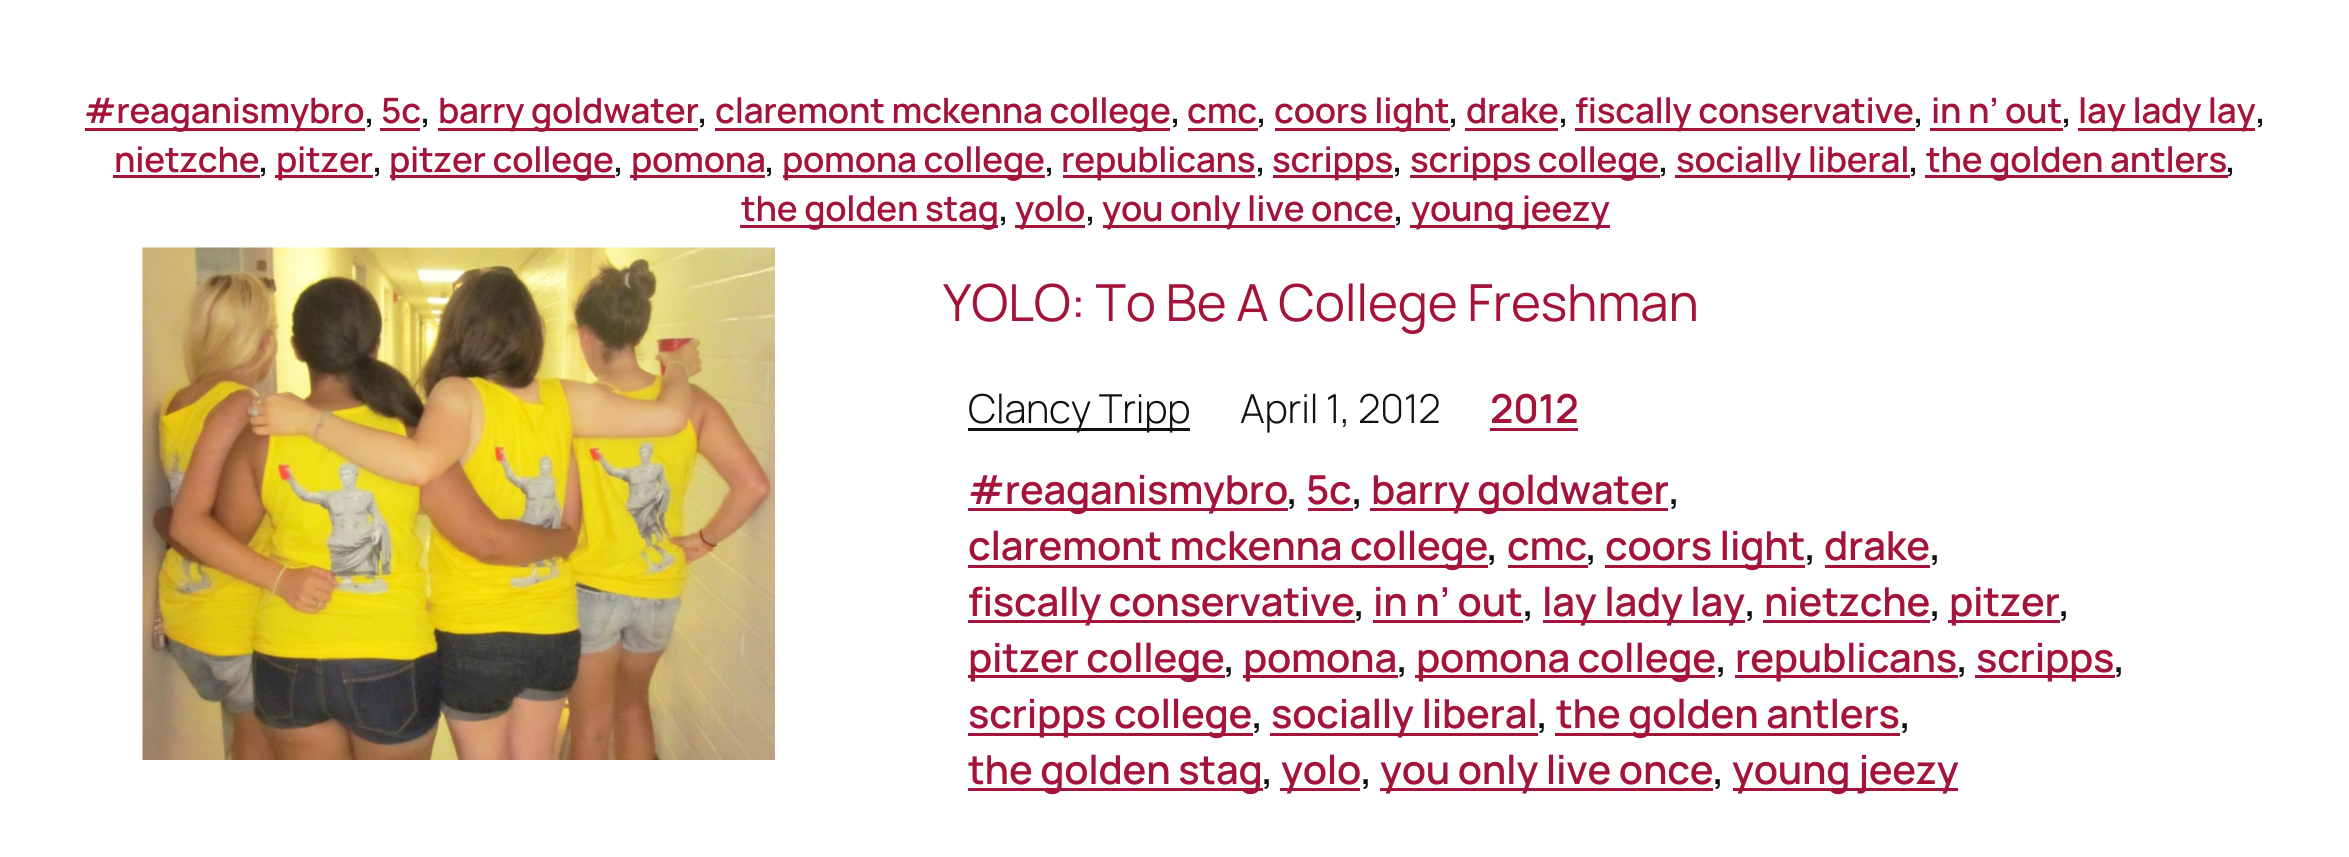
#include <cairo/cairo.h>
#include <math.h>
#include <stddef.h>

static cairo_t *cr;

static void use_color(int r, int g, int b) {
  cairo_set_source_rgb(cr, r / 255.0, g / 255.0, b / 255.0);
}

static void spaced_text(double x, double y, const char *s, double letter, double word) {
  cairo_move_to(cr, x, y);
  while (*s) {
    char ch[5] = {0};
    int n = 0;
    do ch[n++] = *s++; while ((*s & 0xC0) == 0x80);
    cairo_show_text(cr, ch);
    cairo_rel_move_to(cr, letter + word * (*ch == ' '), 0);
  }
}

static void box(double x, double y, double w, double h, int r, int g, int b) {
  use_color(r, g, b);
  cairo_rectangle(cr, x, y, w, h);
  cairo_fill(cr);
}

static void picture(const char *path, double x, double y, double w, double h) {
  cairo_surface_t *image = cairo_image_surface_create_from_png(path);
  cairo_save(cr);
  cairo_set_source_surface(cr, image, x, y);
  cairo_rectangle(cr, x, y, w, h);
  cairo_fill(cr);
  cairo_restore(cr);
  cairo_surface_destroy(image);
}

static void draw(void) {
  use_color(255, 255, 255);
  cairo_paint(cr);
  box(85, 128, 280, 3, 164, 19, 57);
  box(380, 128, 40, 3, 164, 19, 57);
  box(438, 128, 260, 3, 164, 19, 57);
  box(715, 128, 455, 3, 164, 19, 57);
  box(1188, 128, 70, 3, 164, 19, 57);
  box(1275, 128, 175, 3, 164, 19, 57);
  box(1465, 128, 93, 3, 164, 19, 57);
  box(1575, 128, 340, 3, 164, 19, 57);
  box(1930, 128, 133, 3, 164, 19, 57);
  box(2078, 128, 177, 3, 164, 19, 57);
  box(113, 175, 147, 3, 164, 19, 57);
  box(275, 175, 98, 3, 164, 19, 57);
  box(390, 175, 225, 3, 164, 19, 57);
  box(630, 175, 135, 3, 164, 19, 57);
  box(783, 175, 262, 3, 164, 19, 57);
  box(1063, 175, 192, 3, 164, 19, 57);
  box(1273, 175, 120, 3, 164, 19, 57);
  box(1410, 175, 250, 3, 164, 19, 57);
  box(1675, 175, 235, 3, 164, 19, 57);
  box(1925, 175, 303, 3, 164, 19, 57);
  box(740, 225, 258, 3, 164, 19, 57);
  box(1015, 225, 70, 3, 164, 19, 57);
  box(1103, 225, 292, 3, 164, 19, 57);
  box(1410, 225, 200, 3, 164, 19, 57);
  picture("img_01.png", 142, 247, 633, 513);
  box(968, 428, 222, 3, 17, 17, 17);
  box(1490, 428, 88, 3, 164, 19, 57);
  box(968, 508, 320, 3, 164, 19, 57);
  box(1308, 508, 45, 3, 164, 19, 57);
  box(1370, 508, 298, 3, 164, 19, 57);
  box(968, 565, 520, 3, 164, 19, 57);
  box(1508, 565, 80, 3, 164, 19, 57);
  box(1605, 565, 200, 3, 164, 19, 57);
  box(1825, 565, 105, 3, 164, 19, 57);
  box(968, 620, 387, 3, 164, 19, 57);
  box(1373, 620, 150, 3, 164, 19, 57);
  box(1543, 620, 202, 3, 164, 19, 57);
  box(1763, 620, 167, 3, 164, 19, 57);
  box(1948, 620, 112, 3, 164, 19, 57);
  box(968, 675, 257, 3, 164, 19, 57);
  box(1243, 675, 155, 3, 164, 19, 57);
  box(1415, 675, 300, 3, 164, 19, 57);
  box(1735, 675, 223, 3, 164, 19, 57);
  box(1975, 675, 140, 3, 164, 19, 57);
  box(968, 733, 285, 3, 164, 19, 57);
  box(1270, 733, 268, 3, 164, 19, 57);
  box(1555, 733, 345, 3, 164, 19, 57);
  box(968, 788, 295, 3, 164, 19, 57);
  box(1280, 788, 80, 3, 164, 19, 57);
  box(1380, 788, 333, 3, 164, 19, 57);
  box(1733, 788, 225, 3, 164, 19, 57);
  cairo_select_font_face(cr, "Manrope SemiBold", CAIRO_FONT_SLANT_NORMAL, CAIRO_FONT_WEIGHT_NORMAL);
  cairo_set_font_size(cr, 35);
  spaced_text(84, 123, "#reaganismybro", -0.25, 0);
  use_color(17, 17, 17);
  spaced_text(365, 123, ",", -0.25, 0);
  use_color(164, 19, 57);
  spaced_text(381, 123, "5c", -0.25, 0);
  use_color(17, 17, 17);
  spaced_text(421, 123, ",", -0.25, 0);
  use_color(164, 19, 57);
  spaced_text(438, 123, "barry goldwater", -0.25, 0);
  use_color(17, 17, 17);
  spaced_text(698, 123, ",", -0.25, 0);
  use_color(164, 19, 57);
  spaced_text(715, 123, "claremont mckenna college", -0.25, 0);
  use_color(17, 17, 17);
  spaced_text(1171, 123, ",", -0.25, 0);
  use_color(164, 19, 57);
  spaced_text(1187, 123, "cmc", -0.25, 0);
  use_color(17, 17, 17);
  spaced_text(1257, 123, ",", -0.25, 0);
  use_color(164, 19, 57);
  spaced_text(1274, 123, "coors light", -0.25, 0);
  use_color(17, 17, 17);
  spaced_text(1449, 123, ",", -0.25, 0);
  use_color(164, 19, 57);
  spaced_text(1466, 123, "drake", -0.25, 0);
  use_color(17, 17, 17);
  spaced_text(1559, 123, ",", -0.25, 0);
  use_color(164, 19, 57);
  spaced_text(1575, 123, "fiscally conservative", -0.25, 0);
  use_color(17, 17, 17);
  spaced_text(1914, 123, ",", -0.25, 0);
  use_color(164, 19, 57);
  spaced_text(1931, 123, "in n’ out", -0.25, 0);
  use_color(17, 17, 17);
  spaced_text(2062, 123, ",", -0.25, 0);
  use_color(164, 19, 57);
  spaced_text(2078, 123, "lay lady lay", -0.25, 0);
  use_color(17, 17, 17);
  spaced_text(2256, 123, ",", -0.25, 0);
  use_color(164, 19, 57);
  spaced_text(114, 172, "nietzche", -0.25, 0);
  use_color(17, 17, 17);
  spaced_text(259, 172, ",", -0.25, 0);
  use_color(164, 19, 57);
  spaced_text(276, 172, "pitzer", -0.25, 0);
  use_color(17, 17, 17);
  spaced_text(373, 172, ",", -0.25, 0);
  use_color(164, 19, 57);
  spaced_text(389, 172, "pitzer college", -0.25, 0);
  use_color(17, 17, 17);
  spaced_text(614, 172, ",", -0.25, 0);
  use_color(164, 19, 57);
  spaced_text(631, 172, "pomona", -0.25, 0);
  use_color(17, 17, 17);
  spaced_text(765, 172, ",", -0.25, 0);
  use_color(164, 19, 57);
  spaced_text(782, 172, "pomona college", -0.25, 0);
  use_color(17, 17, 17);
  spaced_text(1045, 172, ",", -0.25, 0);
  use_color(164, 19, 57);
  spaced_text(1061, 172, "republicans", -0.25, 0);
  use_color(17, 17, 17);
  spaced_text(1256, 172, ",", -0.25, 0);
  use_color(164, 19, 57);
  spaced_text(1272, 172, "scripps", -0.25, 0);
  use_color(17, 17, 17);
  spaced_text(1393, 172, ",", -0.25, 0);
  use_color(164, 19, 57);
  spaced_text(1410, 172, "scripps college", -0.25, 0);
  use_color(17, 17, 17);
  spaced_text(1659, 172, ",", -0.25, 0);
  use_color(164, 19, 57);
  spaced_text(1676, 172, "socially liberal", -0.25, 0);
  use_color(17, 17, 17);
  spaced_text(1909, 172, ",", -0.25, 0);
  use_color(164, 19, 57);
  spaced_text(1926, 172, "the golden antlers", -0.25, 0);
  use_color(17, 17, 17);
  spaced_text(2226, 172, ",", -0.25, 0);
  use_color(164, 19, 57);
  spaced_text(741, 221, "the golden stag", -0.25, 0);
  use_color(17, 17, 17);
  spaced_text(999, 221, ",", -0.25, 0);
  use_color(164, 19, 57);
  spaced_text(1015, 221, "yolo", -0.25, 0);
  use_color(17, 17, 17);
  spaced_text(1086, 221, ",", -0.25, 0);
  use_color(164, 19, 57);
  spaced_text(1102, 221, "you only live once", -0.25, 0);
  use_color(17, 17, 17);
  spaced_text(1394, 221, ",", -0.25, 0);
  use_color(164, 19, 57);
  spaced_text(1411, 221, "young jeezy", -0.25, 0);
  cairo_select_font_face(cr, "Manrope", CAIRO_FONT_SLANT_NORMAL, CAIRO_FONT_WEIGHT_NORMAL);
  cairo_set_font_size(cr, 51.1);
  spaced_text(943, 321, "YOLO: To Be A College Freshman", -0.25, 0);
  cairo_select_font_face(cr, "Manrope Light", CAIRO_FONT_SLANT_NORMAL, CAIRO_FONT_WEIGHT_NORMAL);
  cairo_set_font_size(cr, 39.9);
  use_color(17, 17, 17);
  spaced_text(968, 423, "Clancy Tripp", -0.25, 0);
  spaced_text(1240, 423, "April 1, 2012", -0.25, 0);
  cairo_select_font_face(cr, "Manrope SemiBold", CAIRO_FONT_SLANT_NORMAL, CAIRO_FONT_WEIGHT_NORMAL);
  use_color(164, 19, 57);
  spaced_text(1490, 423, "2012", -0.25, 0);
  spaced_text(968, 504, "#reaganismybro", -0.25, 0);
  use_color(17, 17, 17);
  spaced_text(1287, 504, ",", -0.25, 0);
  use_color(164, 19, 57);
  spaced_text(1306, 504, "5c", -0.25, 0);
  use_color(17, 17, 17);
  spaced_text(1352, 504, ",", -0.25, 0);
  use_color(164, 19, 57);
  spaced_text(1371, 504, "barry goldwater", -0.25, 0);
  use_color(17, 17, 17);
  spaced_text(1669, 504, ",", -0.25, 0);
  use_color(164, 19, 57);
  spaced_text(968, 560, "claremont mckenna college", -0.25, 0);
  use_color(17, 17, 17);
  spaced_text(1487, 560, ",", -0.25, 0);
  use_color(164, 19, 57);
  spaced_text(1507, 560, "cmc", -0.25, 0);
  use_color(17, 17, 17);
  spaced_text(1586, 560, ",", -0.25, 0);
  use_color(164, 19, 57);
  spaced_text(1605, 560, "coors light", -0.25, 0);
  use_color(17, 17, 17);
  spaced_text(1805, 560, ",", -0.25, 0);
  use_color(164, 19, 57);
  spaced_text(1824, 560, "drake", -0.25, 0);
  use_color(17, 17, 17);
  spaced_text(1930, 560, ",", -0.25, 0);
  use_color(164, 19, 57);
  spaced_text(968, 616, "fiscally conservative", -0.25, 0);
  use_color(17, 17, 17);
  spaced_text(1354, 616, ",", -0.25, 0);
  use_color(164, 19, 57);
  spaced_text(1373, 616, "in n’ out", -0.25, 0);
  use_color(17, 17, 17);
  spaced_text(1523, 616, ",", -0.25, 0);
  use_color(164, 19, 57);
  spaced_text(1542, 616, "lay lady lay", -0.25, 0);
  use_color(17, 17, 17);
  spaced_text(1745, 616, ",", -0.25, 0);
  use_color(164, 19, 57);
  spaced_text(1764, 616, "nietzche", -0.25, 0);
  use_color(17, 17, 17);
  spaced_text(1930, 616, ",", -0.25, 0);
  use_color(164, 19, 57);
  spaced_text(1949, 616, "pitzer", -0.25, 0);
  use_color(17, 17, 17);
  spaced_text(2059, 616, ",", -0.25, 0);
  use_color(164, 19, 57);
  spaced_text(968, 672, "pitzer college", -0.25, 0);
  use_color(17, 17, 17);
  spaced_text(1224, 672, ",", -0.25, 0);
  use_color(164, 19, 57);
  spaced_text(1243, 672, "pomona", -0.25, 0);
  use_color(17, 17, 17);
  spaced_text(1397, 672, ",", -0.25, 0);
  use_color(164, 19, 57);
  spaced_text(1416, 672, "pomona college", -0.25, 0);
  use_color(17, 17, 17);
  spaced_text(1716, 672, ",", -0.25, 0);
  use_color(164, 19, 57);
  spaced_text(1735, 672, "republicans", -0.25, 0);
  use_color(17, 17, 17);
  spaced_text(1957, 672, ",", -0.25, 0);
  use_color(164, 19, 57);
  spaced_text(1976, 672, "scripps", -0.25, 0);
  use_color(17, 17, 17);
  spaced_text(2114, 672, ",", -0.25, 0);
  use_color(164, 19, 57);
  spaced_text(968, 728, "scripps college", -0.25, 0);
  use_color(17, 17, 17);
  spaced_text(1252, 728, ",", -0.25, 0);
  use_color(164, 19, 57);
  spaced_text(1271, 728, "socially liberal", -0.25, 0);
  use_color(17, 17, 17);
  spaced_text(1537, 728, ",", -0.25, 0);
  use_color(164, 19, 57);
  spaced_text(1556, 728, "the golden antlers", -0.25, 0);
  use_color(17, 17, 17);
  spaced_text(1900, 728, ",", -0.25, 0);
  use_color(164, 19, 57);
  spaced_text(968, 784, "the golden stag", -0.25, 0);
  use_color(17, 17, 17);
  spaced_text(1262, 784, ",", -0.25, 0);
  use_color(164, 19, 57);
  spaced_text(1281, 784, "yolo", -0.25, 0);
  use_color(17, 17, 17);
  spaced_text(1361, 784, ",", -0.25, 0);
  use_color(164, 19, 57);
  spaced_text(1380, 784, "you only live once", -0.25, 0);
  use_color(17, 17, 17);
  spaced_text(1713, 784, ",", -0.25, 0);
  use_color(164, 19, 57);
  spaced_text(1732, 784, "young jeezy", -0.25, 0);
}

int main(void) {
  cairo_surface_t *surface = cairo_image_surface_create(CAIRO_FORMAT_RGB24, 2349, 857);
  cr = cairo_create(surface);
  cairo_font_options_t *options = cairo_font_options_create();
  cairo_font_options_set_hint_metrics(options, CAIRO_HINT_METRICS_OFF);
  cairo_font_options_set_hint_style(options, CAIRO_HINT_STYLE_NONE);
  cairo_set_font_options(cr, options);
  cairo_set_miter_limit(cr, 4);
  draw();
  cairo_surface_write_to_png(surface, "out.png");
  cairo_font_options_destroy(options);
  cairo_destroy(cr);
  cairo_surface_destroy(surface);
  return 0;
}
